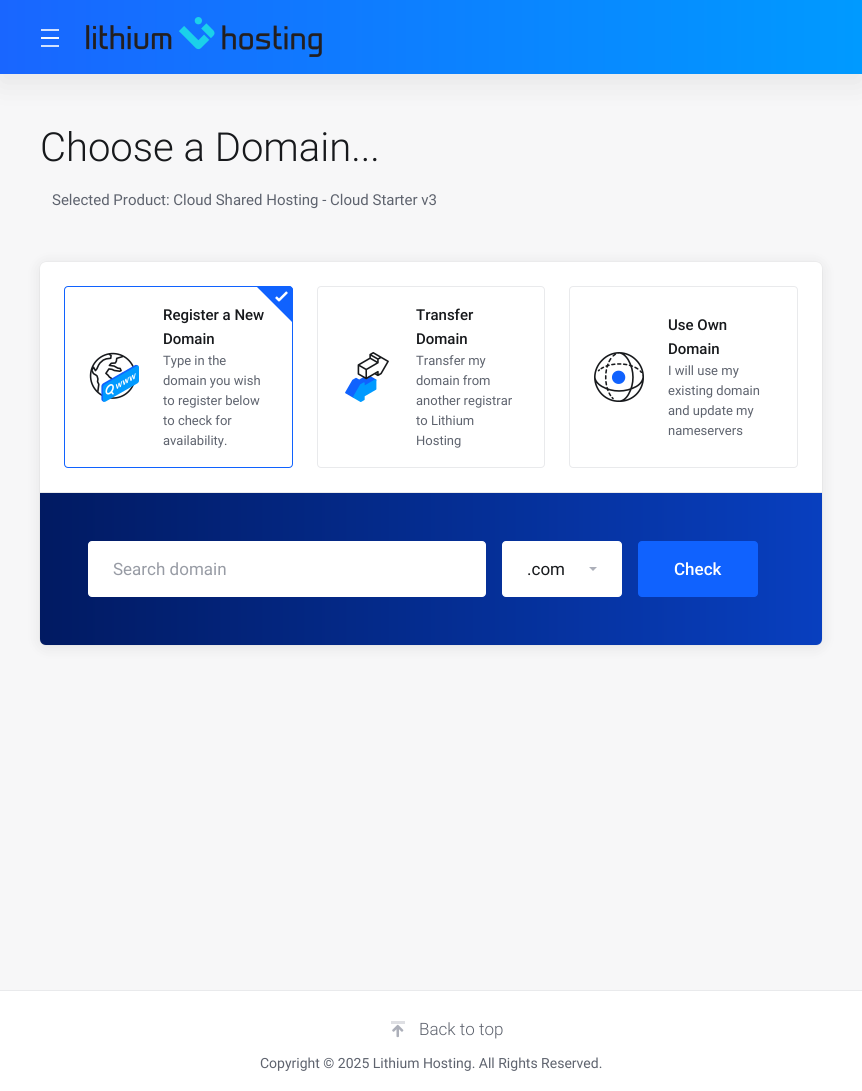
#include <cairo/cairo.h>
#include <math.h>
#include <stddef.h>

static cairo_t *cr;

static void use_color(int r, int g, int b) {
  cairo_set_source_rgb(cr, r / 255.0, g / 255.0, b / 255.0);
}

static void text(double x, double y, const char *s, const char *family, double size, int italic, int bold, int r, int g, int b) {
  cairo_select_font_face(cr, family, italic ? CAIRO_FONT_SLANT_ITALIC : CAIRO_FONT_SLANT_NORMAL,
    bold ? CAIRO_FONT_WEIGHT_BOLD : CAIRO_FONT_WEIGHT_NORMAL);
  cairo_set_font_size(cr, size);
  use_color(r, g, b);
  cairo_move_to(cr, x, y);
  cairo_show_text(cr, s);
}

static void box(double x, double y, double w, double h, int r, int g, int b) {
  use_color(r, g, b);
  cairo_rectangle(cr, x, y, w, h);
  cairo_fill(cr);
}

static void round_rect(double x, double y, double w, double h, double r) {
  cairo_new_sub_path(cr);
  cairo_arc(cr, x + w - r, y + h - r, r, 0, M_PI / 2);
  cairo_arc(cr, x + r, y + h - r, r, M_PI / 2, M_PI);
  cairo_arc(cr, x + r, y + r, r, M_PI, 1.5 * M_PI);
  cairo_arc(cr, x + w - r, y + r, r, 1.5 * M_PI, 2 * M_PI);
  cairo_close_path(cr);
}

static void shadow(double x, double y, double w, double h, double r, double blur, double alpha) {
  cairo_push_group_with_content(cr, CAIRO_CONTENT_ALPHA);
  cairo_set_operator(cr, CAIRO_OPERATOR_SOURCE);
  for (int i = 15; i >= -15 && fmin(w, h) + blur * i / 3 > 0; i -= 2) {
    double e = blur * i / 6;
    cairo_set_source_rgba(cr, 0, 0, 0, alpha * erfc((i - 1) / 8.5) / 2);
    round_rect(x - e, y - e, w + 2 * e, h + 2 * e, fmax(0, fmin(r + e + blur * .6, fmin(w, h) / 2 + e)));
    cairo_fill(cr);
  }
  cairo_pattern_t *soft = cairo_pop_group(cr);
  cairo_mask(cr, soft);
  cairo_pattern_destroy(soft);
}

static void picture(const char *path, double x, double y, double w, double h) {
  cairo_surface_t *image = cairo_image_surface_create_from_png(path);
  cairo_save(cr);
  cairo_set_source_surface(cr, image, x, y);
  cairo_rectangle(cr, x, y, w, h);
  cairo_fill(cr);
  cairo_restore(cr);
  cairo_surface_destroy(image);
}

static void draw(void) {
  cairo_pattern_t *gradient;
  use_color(247, 247, 248);
  cairo_paint(cr);
  use_color(0, 0, 0);
  shadow(0, 8, 862, 74, 0, 16, 0.08);
  gradient = cairo_pattern_create_linear(0, 37, 862, 37);
  cairo_pattern_add_color_stop_rgba(gradient, 0, 0.098, 0.4, 1, 1);
  cairo_pattern_add_color_stop_rgba(gradient, 1, 0, 0.604, 1, 1);
  cairo_set_source(cr, gradient);
  cairo_pattern_destroy(gradient);
  cairo_rectangle(cr, 0, 0, 862, 74);
  cairo_fill(cr);
  box(41, 29, 18, 2, 209, 225, 255);
  box(41, 37, 18, 2, 246, 249, 255);
  box(41, 45, 18, 2, 209, 225, 255);
  picture("img_01.png", 86, 17, 236, 40);
  use_color(0, 0, 0);
  shadow(40, 264, 782, 383, 6, 8, 0.08);
  shadow(40, 262, 782, 383, 6, 0.5, 0.1);
  use_color(255, 255, 255);
  round_rect(40, 262, 782, 383, 6);
  cairo_fill(cr);
  round_rect(64.5, 286.5, 228, 181, 3.5);
  use_color(16, 98, 254);
  cairo_set_line_width(cr, 1);
  cairo_stroke(cr);
  picture("img_03.png", 89, 352, 50, 50);
  round_rect(317.5, 286.5, 227, 181, 3.5);
  use_color(233, 234, 236);
  cairo_stroke(cr);
  picture("img_04.png", 345, 352, 44, 50);
  round_rect(569.5, 286.5, 228, 181, 3.5);
  cairo_stroke(cr);
  picture("img_05.png", 594, 352, 50, 50);
  gradient = cairo_pattern_create_linear(40, 569, 822, 569);
  cairo_pattern_add_color_stop_rgba(gradient, 0, 0.004, 0.102, 0.384, 1);
  cairo_pattern_add_color_stop_rgba(gradient, 1, 0.031, 0.247, 0.749, 1);
  cairo_set_source(cr, gradient);
  cairo_pattern_destroy(gradient);
  cairo_new_path(cr);
  cairo_move_to(cr, 40, 492);
  cairo_line_to(cr, 822, 492);
  cairo_line_to(cr, 822, 639);
  cairo_curve_to(cr, 822, 642.5, 819.5, 645, 816, 645);
  cairo_line_to(cr, 46, 645);
  cairo_curve_to(cr, 42.5, 645, 40, 642.5, 40, 639);
  cairo_close_path(cr);
  cairo_fill(cr);
  box(40, 492, 782, 1, 233, 234, 236);
  use_color(255, 255, 255);
  round_rect(88.5, 541.5, 397, 55, 3.5);
  cairo_fill_preserve(cr);
  cairo_stroke(cr);
  round_rect(502.5, 541.5, 119, 55, 3.5);
  cairo_fill_preserve(cr);
  cairo_stroke(cr);
  use_color(172, 175, 185);
  cairo_new_path(cr);
  cairo_move_to(cr, 589, 567);
  cairo_line_to(cr, 597, 567);
  cairo_line_to(cr, 593, 571);
  cairo_close_path(cr);
  cairo_fill(cr);
  use_color(16, 98, 254);
  round_rect(638.5, 541.5, 119, 55, 3.5);
  cairo_fill_preserve(cr);
  cairo_stroke(cr);
  box(0, 991, 862, 100, 255, 255, 255);
  box(0, 990, 862, 1, 233, 234, 236);
  box(391, 1021, 14, 3, 222, 223, 227);
  picture("img_06.png", 392, 1024, 12, 14);
  text(40, 161, "Choose a Domain...", "Roboto Light", 40, 0, 0, 23, 25, 28);
  text(52, 205, "Selected Product: Cloud Shared Hosting - Cloud Starter v3", "Roboto", 15, 0, 0, 94, 99, 110);
  text(163, 320, "Register a New", "Roboto Medium", 15, 0, 0, 23, 25, 28);
  use_color(16, 98, 254);
  cairo_new_path(cr);
  cairo_move_to(cr, 293, 323);
  cairo_line_to(cr, 293, 290);
  cairo_curve_to(cr, 293, 288, 291, 286, 289, 286);
  cairo_line_to(cr, 256, 286);
  cairo_close_path(cr);
  cairo_fill(cr);
  picture("img_02.png", 275, 291, 13, 11);
  text(163, 344, "Domain", "Roboto Medium", 15, 0, 0, 23, 25, 28);
  text(163, 365, "Type in the", "Roboto", 13, 0, 0, 94, 99, 110);
  text(163, 385, "domain you wish", "Roboto", 13, 0, 0, 94, 99, 110);
  text(163, 405, "to register below", "Roboto", 13, 0, 0, 94, 99, 110);
  text(163, 425, "to check for", "Roboto", 13, 0, 0, 94, 99, 110);
  text(163, 445, "availability.", "Roboto", 13, 0, 0, 94, 99, 110);
  text(416, 320, "Transfer", "Roboto Medium", 15, 0, 0, 23, 25, 28);
  text(416, 344, "Domain", "Roboto Medium", 15, 0, 0, 23, 25, 28);
  text(416, 365, "Transfer my", "Roboto", 13, 0, 0, 94, 99, 110);
  text(416, 385, "domain from", "Roboto", 13, 0, 0, 94, 99, 110);
  text(416, 405, "another registrar", "Roboto", 13, 0, 0, 94, 99, 110);
  text(416, 425, "to Lithium", "Roboto", 13, 0, 0, 94, 99, 110);
  text(416, 445, "Hosting", "Roboto", 13, 0, 0, 94, 99, 110);
  text(668, 330, "Use Own", "Roboto Medium", 15, 0, 0, 23, 25, 28);
  text(668, 354, "Domain", "Roboto Medium", 15, 0, 0, 23, 25, 28);
  text(668, 375, "I will use my", "Roboto", 13, 0, 0, 94, 99, 110);
  text(668, 395, "existing domain", "Roboto", 13, 0, 0, 94, 99, 110);
  text(668, 415, "and update my", "Roboto", 13, 0, 0, 94, 99, 110);
  text(668, 435, "nameservers", "Roboto", 13, 0, 0, 94, 99, 110);
  text(113, 575, "Search domain", "Roboto", 17, 0, 0, 151, 155, 164);
  text(527, 575, ".com", "Roboto", 17, 0, 0, 23, 25, 28);
  text(674, 575, "Check", "Roboto Medium", 17, 0, 0, 255, 255, 255);
  text(419, 1035, "Back to top", "Roboto Light", 17, 0, 0, 94, 99, 110);
  text(260, 1068, "Copyright © 2025 Lithium Hosting. All Rights Reserved.", "Roboto", 14, 0, 0, 94, 99, 110);
}

int main(void) {
  cairo_surface_t *surface = cairo_image_surface_create(CAIRO_FORMAT_RGB24, 862, 1091);
  cr = cairo_create(surface);
  cairo_font_options_t *options = cairo_font_options_create();
  cairo_font_options_set_hint_metrics(options, CAIRO_HINT_METRICS_OFF);
  cairo_font_options_set_hint_style(options, CAIRO_HINT_STYLE_NONE);
  cairo_set_font_options(cr, options);
  cairo_set_miter_limit(cr, 4);
  draw();
  cairo_surface_write_to_png(surface, "out.png");
  cairo_font_options_destroy(options);
  cairo_destroy(cr);
  cairo_surface_destroy(surface);
  return 0;
}
